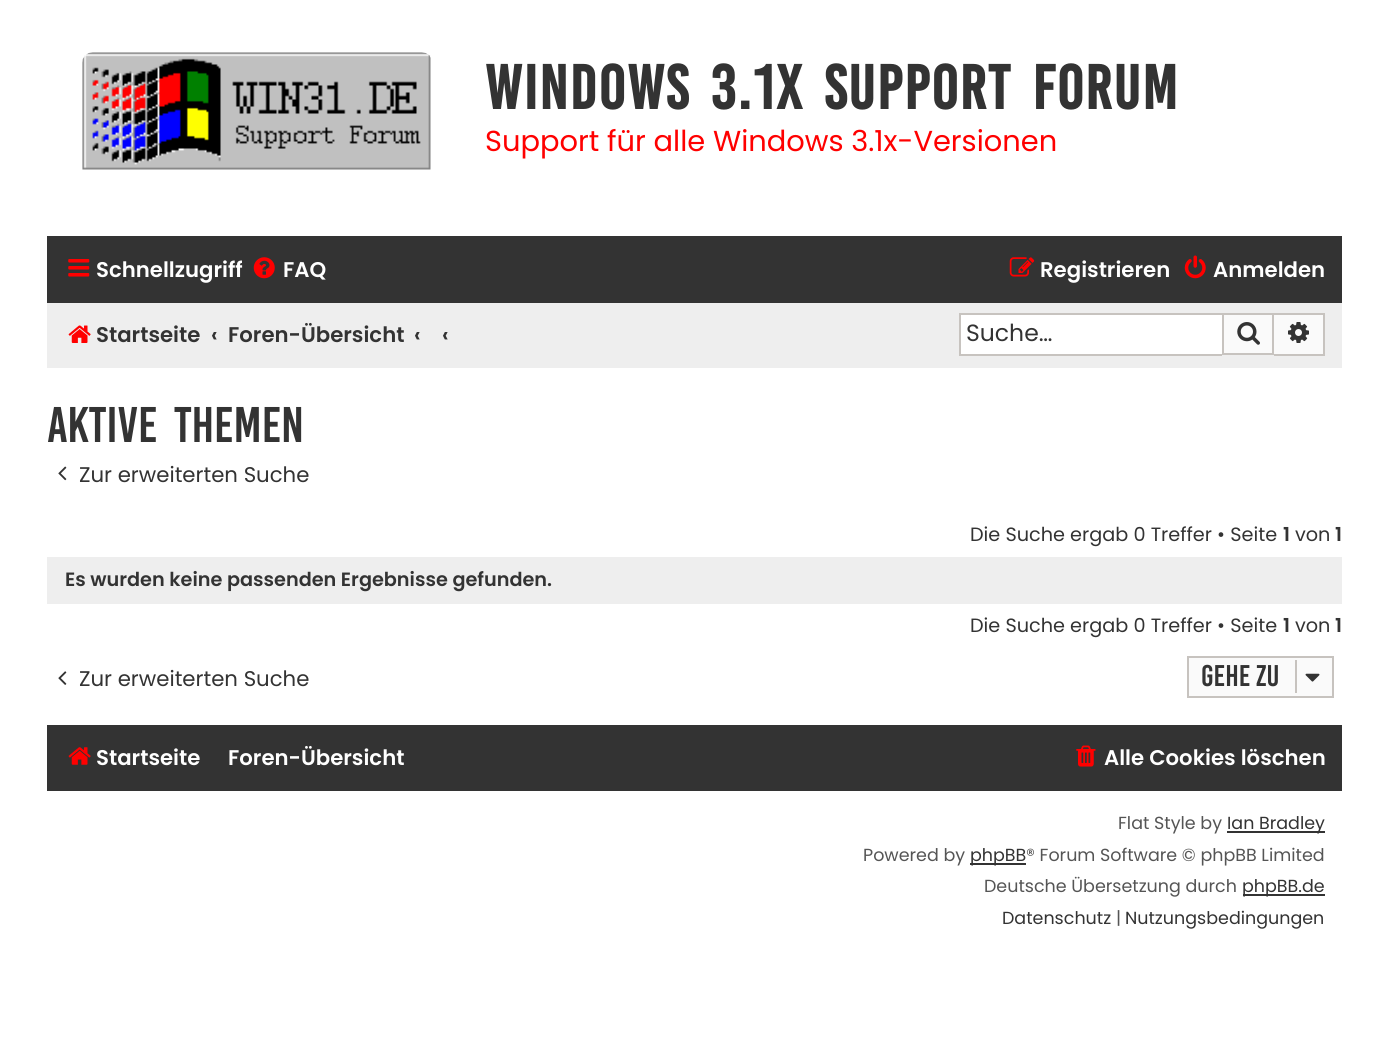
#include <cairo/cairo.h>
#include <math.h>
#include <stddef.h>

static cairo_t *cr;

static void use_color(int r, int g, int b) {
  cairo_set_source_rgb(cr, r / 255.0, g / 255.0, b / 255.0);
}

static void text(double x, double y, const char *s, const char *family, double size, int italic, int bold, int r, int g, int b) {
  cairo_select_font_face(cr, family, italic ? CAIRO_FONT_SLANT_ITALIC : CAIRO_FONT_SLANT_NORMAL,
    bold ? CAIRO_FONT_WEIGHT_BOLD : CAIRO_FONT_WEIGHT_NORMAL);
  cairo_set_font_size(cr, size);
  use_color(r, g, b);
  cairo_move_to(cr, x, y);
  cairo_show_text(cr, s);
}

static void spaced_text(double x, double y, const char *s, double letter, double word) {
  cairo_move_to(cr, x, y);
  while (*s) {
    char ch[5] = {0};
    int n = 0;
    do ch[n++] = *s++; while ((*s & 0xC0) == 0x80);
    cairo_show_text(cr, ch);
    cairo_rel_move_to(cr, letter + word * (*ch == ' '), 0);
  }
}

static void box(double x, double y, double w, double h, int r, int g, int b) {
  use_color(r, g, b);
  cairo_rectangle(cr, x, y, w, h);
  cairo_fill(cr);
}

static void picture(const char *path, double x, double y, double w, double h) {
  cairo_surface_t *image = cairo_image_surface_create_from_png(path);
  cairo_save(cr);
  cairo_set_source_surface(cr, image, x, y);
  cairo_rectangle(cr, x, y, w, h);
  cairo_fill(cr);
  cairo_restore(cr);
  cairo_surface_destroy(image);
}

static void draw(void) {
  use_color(255, 255, 255);
  cairo_paint(cr);
  picture("img_01.png", 82, 52, 349, 118);
  box(47, 236, 1295, 67, 51, 51, 51);
  picture("img_02.png", 68, 259, 22, 18);
  picture("img_03.png", 253, 257, 22, 22);
  picture("img_04.png", 1009, 257, 26, 20);
  picture("img_05.png", 1184, 255, 22, 24);
  box(47, 303, 1295, 65, 238, 238, 238);
  picture("img_06.png", 68, 325, 23, 18);
  box(961, 315, 261, 39, 255, 255, 255);
  box(959, 313, 263, 2, 199, 195, 191);
  box(959, 354, 263, 2, 199, 195, 191);
  box(959, 313, 2, 42, 199, 195, 191);
  use_color(250, 250, 250);
  cairo_rectangle(cr, 1223, 314, 50, 40);
  cairo_fill_preserve(cr);
  use_color(199, 195, 191);
  cairo_stroke(cr);
  picture("img_07.png", 1237, 322, 23, 23);
  box(1274, 315, 49, 39, 250, 250, 250);
  box(1274, 313, 51, 2, 199, 195, 191);
  box(1323, 313, 2, 42, 199, 195, 191);
  box(1274, 354, 51, 2, 199, 195, 191);
  picture("img_08.png", 1288, 322, 21, 21);
  picture("img_09.png", 58, 466, 9, 15);
  box(47, 557, 1295, 47, 238, 238, 238);
  picture("img_10.png", 58, 671, 9, 14);
  use_color(250, 250, 250);
  cairo_rectangle(cr, 1188, 657, 145, 40);
  cairo_fill_preserve(cr);
  use_color(199, 195, 191);
  cairo_stroke(cr);
  box(1295, 660, 2, 33, 199, 195, 191);
  picture("img_11.png", 1305, 673, 15, 9);
  box(47, 725, 1295, 66, 51, 51, 51);
  picture("img_12.png", 68, 747, 23, 18);
  picture("img_13.png", 1076, 745, 20, 22);
  box(1227, 831, 98, 2, 51, 51, 51);
  box(970, 863, 56, 2, 51, 51, 51);
  box(1243, 894, 82, 2, 51, 51, 51);
  cairo_select_font_face(cr, "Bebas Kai", CAIRO_FONT_SLANT_NORMAL, CAIRO_FONT_WEIGHT_BOLD);
  cairo_set_font_size(cr, 48.1);
  spaced_text(485, 109, "Windows 3.1x Support Forum", 1.75, 7);
  text(485, 151, "Support für alle Windows 3.1x-Versionen", "Poppins", 28.9, 0, 0, 255, 0, 0);
  text(96, 277, "Schnellzugriff", "Poppins SemiBold", 21.25, 0, 0, 255, 255, 255);
  text(283, 277, "FAQ", "Poppins SemiBold", 21.25, 0, 0, 255, 255, 255);
  text(1040, 277, "Registrieren", "Poppins SemiBold", 21.25, 0, 0, 255, 255, 255);
  text(1213, 277, "Anmelden", "Poppins SemiBold", 21.25, 0, 0, 255, 255, 255);
  text(96, 342, "Startseite", "Poppins SemiBold", 21.25, 0, 0, 51, 51, 51);
  text(211, 342, "‹", "Poppins SemiBold", 21.25, 0, 0, 51, 51, 51);
  text(228, 342, "Foren-Übersicht", "Poppins SemiBold", 21.25, 0, 0, 51, 51, 51);
  text(414, 342, "‹", "Poppins SemiBold", 21.25, 0, 0, 51, 51, 51);
  text(442, 342, "‹", "Poppins SemiBold", 21.25, 0, 0, 51, 51, 51);
  text(966, 341, "Suche…", "Poppins", 23.5, 0, 0, 51, 51, 51);
  cairo_select_font_face(cr, "Bebas Kai", CAIRO_FONT_SLANT_NORMAL, CAIRO_FONT_WEIGHT_NORMAL);
  cairo_set_font_size(cr, 38.5);
  spaced_text(47, 442, "Aktive Themen", 0, 7);
  text(79, 482, "Zur erweiterten Suche", "Poppins", 21.25, 0, 0, 51, 51, 51);
  text(970, 541, "Die Suche ergab 0 Treffer • Seite", "Poppins", 19.25, 0, 0, 51, 51, 51);
  text(1283, 541, "1", "Poppins SemiBold", 19.25, 0, 0, 51, 51, 51);
  text(1295, 541, "von", "Poppins", 19.25, 0, 0, 51, 51, 51);
  text(1335, 541, "1", "Poppins SemiBold", 19.25, 0, 0, 51, 51, 51);
  text(65, 586, "Es wurden keine passenden Ergebnisse gefunden.", "Poppins SemiBold", 19.25, 0, 0, 51, 51, 51);
  text(970, 632, "Die Suche ergab 0 Treffer • Seite", "Poppins", 19.25, 0, 0, 51, 51, 51);
  text(1283, 632, "1", "Poppins SemiBold", 19.25, 0, 0, 51, 51, 51);
  text(1295, 632, "von", "Poppins", 19.25, 0, 0, 51, 51, 51);
  text(1335, 632, "1", "Poppins SemiBold", 19.25, 0, 0, 51, 51, 51);
  text(79, 686, "Zur erweiterten Suche", "Poppins", 21.25, 0, 0, 51, 51, 51);
  text(1201, 686, "Gehe zu", "Bebas Kai", 23, 0, 0, 51, 51, 51);
  text(96, 765, "Startseite", "Poppins SemiBold", 21.25, 0, 0, 255, 255, 255);
  text(228, 765, "Foren-Übersicht", "Poppins SemiBold", 21.25, 0, 0, 255, 255, 255);
  text(1104, 765, "Alle Cookies löschen", "Poppins SemiBold", 21.25, 0, 0, 255, 255, 255);
  text(1118, 829, "Flat Style by", "Poppins", 17.5, 0, 0, 85, 85, 85);
  text(1227, 829, "Ian Bradley", "Poppins", 17.5, 0, 0, 51, 51, 51);
  text(863, 861, "Powered by", "Poppins", 17.5, 0, 0, 85, 85, 85);
  text(970, 861, "phpBB", "Poppins", 17.5, 0, 0, 51, 51, 51);
  text(1026, 861, "® Forum Software © phpBB Limited", "Poppins", 17.5, 0, 0, 85, 85, 85);
  text(984, 892, "Deutsche Übersetzung durch", "Poppins", 17.5, 0, 0, 85, 85, 85);
  text(1242, 892, "phpBB.de", "Poppins", 17.5, 0, 0, 51, 51, 51);
  text(1002, 924, "Datenschutz", "Poppins", 17.5, 0, 0, 51, 51, 51);
  text(1116, 924, "|", "Poppins", 17.5, 0, 0, 85, 85, 85);
  text(1125, 924, "Nutzungsbedingungen", "Poppins", 17.5, 0, 0, 51, 51, 51);
}

int main(void) {
  cairo_surface_t *surface = cairo_image_surface_create(CAIRO_FORMAT_RGB24, 1389, 1054);
  cr = cairo_create(surface);
  cairo_font_options_t *options = cairo_font_options_create();
  cairo_font_options_set_hint_metrics(options, CAIRO_HINT_METRICS_OFF);
  cairo_font_options_set_hint_style(options, CAIRO_HINT_STYLE_NONE);
  cairo_set_font_options(cr, options);
  cairo_set_miter_limit(cr, 4);
  draw();
  cairo_surface_write_to_png(surface, "out.png");
  cairo_font_options_destroy(options);
  cairo_destroy(cr);
  cairo_surface_destroy(surface);
  return 0;
}
